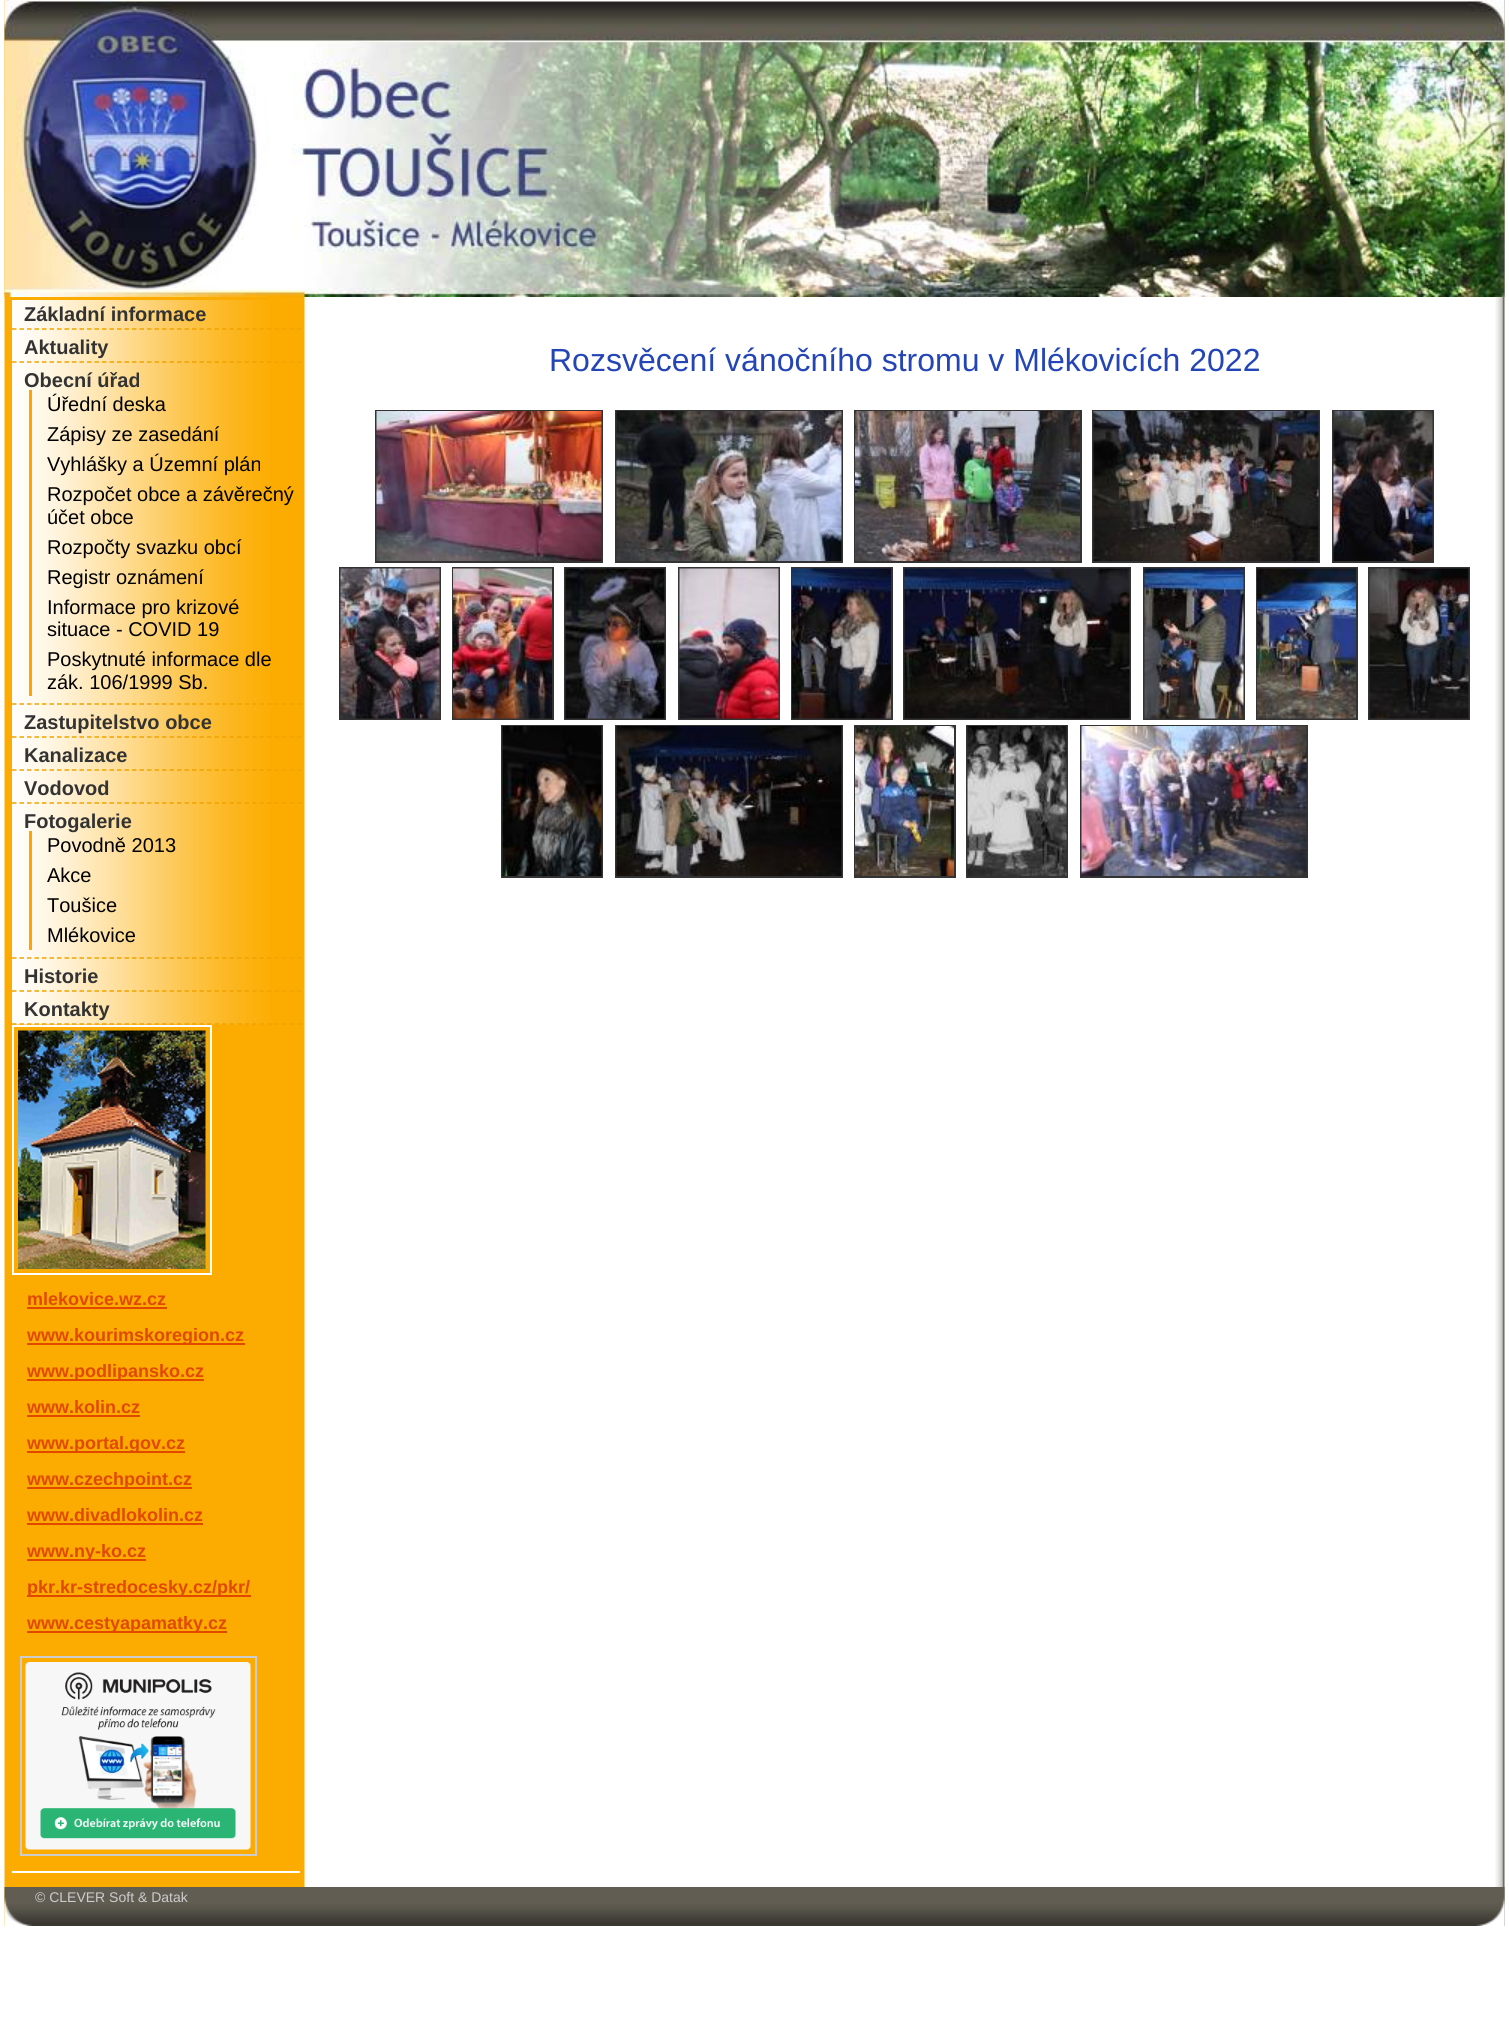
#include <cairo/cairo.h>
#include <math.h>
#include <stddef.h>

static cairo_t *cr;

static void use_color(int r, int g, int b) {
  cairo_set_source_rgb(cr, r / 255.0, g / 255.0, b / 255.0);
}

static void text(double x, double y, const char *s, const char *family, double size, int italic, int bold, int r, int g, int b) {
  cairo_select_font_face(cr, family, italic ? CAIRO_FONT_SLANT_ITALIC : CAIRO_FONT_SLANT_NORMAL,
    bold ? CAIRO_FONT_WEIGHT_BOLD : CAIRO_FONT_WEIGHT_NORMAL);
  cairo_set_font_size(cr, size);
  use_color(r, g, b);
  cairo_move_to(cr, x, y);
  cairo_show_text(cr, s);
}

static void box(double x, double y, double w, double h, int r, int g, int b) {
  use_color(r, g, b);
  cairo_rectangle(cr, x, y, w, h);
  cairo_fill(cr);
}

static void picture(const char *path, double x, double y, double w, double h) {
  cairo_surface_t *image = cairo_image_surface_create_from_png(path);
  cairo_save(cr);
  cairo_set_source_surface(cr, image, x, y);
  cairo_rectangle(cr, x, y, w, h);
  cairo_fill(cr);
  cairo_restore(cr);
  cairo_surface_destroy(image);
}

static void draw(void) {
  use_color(255, 255, 255);
  cairo_paint(cr);
  picture("img_01.png", 4, 0, 1501, 1926);
  picture("img_02.png", 4, 0, 1501, 297);
  picture("img_03.png", 12, 300, 258, 725);
  cairo_new_path(cr);
  cairo_move_to(cr, 12, 329);
  cairo_line_to(cr, 301.5, 329);
  use_color(240, 163, 0);
  cairo_set_line_width(cr, 1.5);
  cairo_set_dash(cr, (double[]){4.5, 3}, 2, 0);
  cairo_stroke(cr);
  cairo_new_path(cr);
  cairo_move_to(cr, 12, 362);
  cairo_line_to(cr, 301.5, 362);
  cairo_stroke(cr);
  cairo_new_path(cr);
  cairo_move_to(cr, 12, 704);
  cairo_line_to(cr, 301.5, 704);
  cairo_stroke(cr);
  box(29, 390, 3, 306, 255, 165, 0);
  cairo_new_path(cr);
  cairo_move_to(cr, 12, 737);
  cairo_line_to(cr, 301.5, 737);
  use_color(240, 163, 0);
  cairo_stroke(cr);
  cairo_new_path(cr);
  cairo_move_to(cr, 12, 770);
  cairo_line_to(cr, 301.5, 770);
  cairo_stroke(cr);
  cairo_new_path(cr);
  cairo_move_to(cr, 12, 803);
  cairo_line_to(cr, 301.5, 803);
  cairo_stroke(cr);
  cairo_new_path(cr);
  cairo_move_to(cr, 12, 958);
  cairo_line_to(cr, 301.5, 958);
  cairo_stroke(cr);
  cairo_new_path(cr);
  cairo_move_to(cr, 12, 991);
  cairo_line_to(cr, 301.5, 991);
  cairo_stroke(cr);
  cairo_new_path(cr);
  cairo_move_to(cr, 12, 1024);
  cairo_line_to(cr, 301.5, 1024);
  cairo_stroke(cr);
  cairo_rectangle(cr, 13, 1026, 198, 248);
  use_color(255, 255, 255);
  cairo_set_line_width(cr, 2);
  cairo_set_dash(cr, NULL, 0, 0);
  cairo_stroke(cr);
  picture("img_04.png", 18, 1030, 188, 239);
  box(27, 1307, 140, 2, 225, 73, 0);
  box(27, 1343, 218, 2, 225, 73, 0);
  box(27, 1379, 177, 2, 225, 73, 0);
  box(27, 1415, 113, 2, 225, 73, 0);
  box(27, 1451, 158, 2, 225, 73, 0);
  box(27, 1487, 165, 2, 225, 73, 0);
  box(27, 1523, 176, 2, 225, 73, 0);
  box(27, 1559, 119, 2, 225, 73, 0);
  box(27, 1595, 224, 2, 225, 73, 0);
  box(27, 1631, 200, 2, 225, 73, 0);
  box(12, 1871, 288, 2, 255, 255, 255);
  cairo_rectangle(cr, 21, 1657, 235, 198);
  use_color(204, 204, 204);
  cairo_stroke(cr);
  picture("img_05.png", 25, 1662, 226, 188);
  cairo_rectangle(cr, 376, 411, 226, 151);
  use_color(51, 51, 51);
  cairo_stroke(cr);
  cairo_rectangle(cr, 616, 411, 226, 151);
  cairo_stroke(cr);
  cairo_rectangle(cr, 855, 411, 226, 151);
  cairo_stroke(cr);
  cairo_rectangle(cr, 1093, 411, 226, 151);
  cairo_stroke(cr);
  cairo_rectangle(cr, 1333, 411, 100, 151);
  cairo_stroke(cr);
  picture("img_06.png", 376, 411, 226, 150);
  picture("img_07.png", 616, 411, 226, 150);
  picture("img_08.png", 855, 411, 225, 150);
  picture("img_09.png", 1093, 411, 226, 150);
  picture("img_10.png", 1333, 411, 100, 150);
  cairo_rectangle(cr, 340, 568, 100, 151);
  cairo_stroke(cr);
  cairo_rectangle(cr, 453, 568, 100, 151);
  cairo_stroke(cr);
  cairo_rectangle(cr, 565, 568, 100, 151);
  cairo_stroke(cr);
  cairo_rectangle(cr, 679, 568, 100, 151);
  cairo_stroke(cr);
  cairo_rectangle(cr, 792, 568, 100, 151);
  cairo_stroke(cr);
  cairo_rectangle(cr, 904, 568, 226, 151);
  cairo_stroke(cr);
  cairo_rectangle(cr, 1144, 568, 100, 151);
  cairo_stroke(cr);
  cairo_rectangle(cr, 1257, 568, 100, 151);
  cairo_stroke(cr);
  cairo_rectangle(cr, 1369, 568, 100, 151);
  cairo_stroke(cr);
  picture("img_11.png", 340, 568, 100, 151);
  picture("img_12.png", 453, 568, 99, 151);
  picture("img_13.png", 565, 568, 100, 151);
  picture("img_14.png", 679, 568, 100, 151);
  picture("img_15.png", 792, 568, 99, 151);
  picture("img_16.png", 904, 568, 226, 151);
  picture("img_17.png", 1144, 568, 100, 151);
  picture("img_18.png", 1257, 568, 99, 151);
  picture("img_19.png", 1369, 568, 100, 151);
  cairo_rectangle(cr, 502, 726, 100, 151);
  cairo_stroke(cr);
  cairo_rectangle(cr, 616, 726, 226, 151);
  cairo_stroke(cr);
  cairo_rectangle(cr, 855, 726, 100, 151);
  cairo_stroke(cr);
  cairo_rectangle(cr, 967, 726, 100, 151);
  cairo_stroke(cr);
  cairo_rectangle(cr, 1081, 726, 226, 151);
  cairo_stroke(cr);
  picture("img_20.png", 502, 726, 100, 150);
  picture("img_21.png", 616, 726, 226, 150);
  picture("img_22.png", 855, 726, 99, 150);
  picture("img_23.png", 967, 726, 100, 150);
  picture("img_24.png", 1081, 726, 226, 150);
  picture("img_25.png", 4, 1887, 1501, 39);
  text(24, 321, "Základní informace", "Liberation Sans", 20, 0, 1, 51, 51, 51);
  text(24, 354, "Aktuality", "Liberation Sans", 20, 0, 1, 51, 51, 51);
  text(24, 387, "Obecní úřad", "Liberation Sans", 20, 0, 1, 51, 51, 51);
  text(47, 411, "Úřední deska", "Liberation Sans", 20, 0, 0, 0, 0, 0);
  text(47, 441, "Zápisy ze zasedání", "Liberation Sans", 20, 0, 0, 0, 0, 0);
  text(47, 471, "Vyhlášky a Územní plán", "Liberation Sans", 20, 0, 0, 0, 0, 0);
  text(47, 501, "Rozpočet obce a závěrečný", "Liberation Sans", 20, 0, 0, 0, 0, 0);
  text(47, 524, "účet obce", "Liberation Sans", 20, 0, 0, 0, 0, 0);
  text(47, 554, "Rozpočty svazku obcí", "Liberation Sans", 20, 0, 0, 0, 0, 0);
  text(47, 584, "Registr oznámení", "Liberation Sans", 20, 0, 0, 0, 0, 0);
  text(47, 614, "Informace pro krizové", "Liberation Sans", 20, 0, 0, 0, 0, 0);
  text(47, 636, "situace - COVID 19", "Liberation Sans", 20, 0, 0, 0, 0, 0);
  text(47, 666, "Poskytnuté informace dle", "Liberation Sans", 20, 0, 0, 0, 0, 0);
  text(47, 689, "zák. 106/1999 Sb.", "Liberation Sans", 20, 0, 0, 0, 0, 0);
  text(24, 729, "Zastupitelstvo obce", "Liberation Sans", 20, 0, 1, 51, 51, 51);
  text(24, 762, "Kanalizace", "Liberation Sans", 20, 0, 1, 51, 51, 51);
  text(24, 795, "Vodovod", "Liberation Sans", 20, 0, 1, 51, 51, 51);
  text(24, 828, "Fotogalerie", "Liberation Sans", 20, 0, 1, 51, 51, 51);
  box(29, 831, 3, 119, 255, 165, 0);
  text(47, 852, "Povodně 2013", "Liberation Sans", 20, 0, 0, 0, 0, 0);
  text(47, 882, "Akce", "Liberation Sans", 20, 0, 0, 0, 0, 0);
  text(47, 912, "Toušice", "Liberation Sans", 20, 0, 0, 0, 0, 0);
  text(47, 942, "Mlékovice", "Liberation Sans", 20, 0, 0, 0, 0, 0);
  text(24, 983, "Historie", "Liberation Sans", 20, 0, 1, 51, 51, 51);
  text(24, 1016, "Kontakty", "Liberation Sans", 20, 0, 1, 51, 51, 51);
  text(27, 1305, "mlekovice.wz.cz", "Liberation Sans", 18, 0, 1, 225, 73, 0);
  text(27, 1341, "www.kourimskoregion.cz", "Liberation Sans", 18, 0, 1, 225, 73, 0);
  text(27, 1377, "www.podlipansko.cz", "Liberation Sans", 18, 0, 1, 225, 73, 0);
  text(27, 1413, "www.kolin.cz", "Liberation Sans", 18, 0, 1, 225, 73, 0);
  text(27, 1449, "www.portal.gov.cz", "Liberation Sans", 18, 0, 1, 225, 73, 0);
  text(27, 1485, "www.czechpoint.cz", "Liberation Sans", 18, 0, 1, 225, 73, 0);
  text(27, 1521, "www.divadlokolin.cz", "Liberation Sans", 18, 0, 1, 225, 73, 0);
  text(27, 1557, "www.ny-ko.cz", "Liberation Sans", 18, 0, 1, 225, 73, 0);
  text(27, 1593, "pkr.kr-stredocesky.cz/pkr/", "Liberation Sans", 18, 0, 1, 225, 73, 0);
  text(27, 1629, "www.cestyapamatky.cz", "Liberation Sans", 18, 0, 1, 225, 73, 0);
  text(549, 371, "Rozsvěcení vánočního stromu v Mlékovicích 2022", "Liberation Sans", 32, 0, 0, 36, 69, 182);
  text(35, 1902, "© CLEVER Soft & Datak", "Liberation Sans", 14, 0, 0, 204, 204, 204);
}

int main(void) {
  cairo_surface_t *surface = cairo_image_surface_create(CAIRO_FORMAT_RGB24, 1509, 2032);
  cr = cairo_create(surface);
  cairo_font_options_t *options = cairo_font_options_create();
  cairo_font_options_set_hint_metrics(options, CAIRO_HINT_METRICS_OFF);
  cairo_font_options_set_hint_style(options, CAIRO_HINT_STYLE_NONE);
  cairo_set_font_options(cr, options);
  cairo_set_miter_limit(cr, 4);
  draw();
  cairo_surface_write_to_png(surface, "out.png");
  cairo_font_options_destroy(options);
  cairo_destroy(cr);
  cairo_surface_destroy(surface);
  return 0;
}
